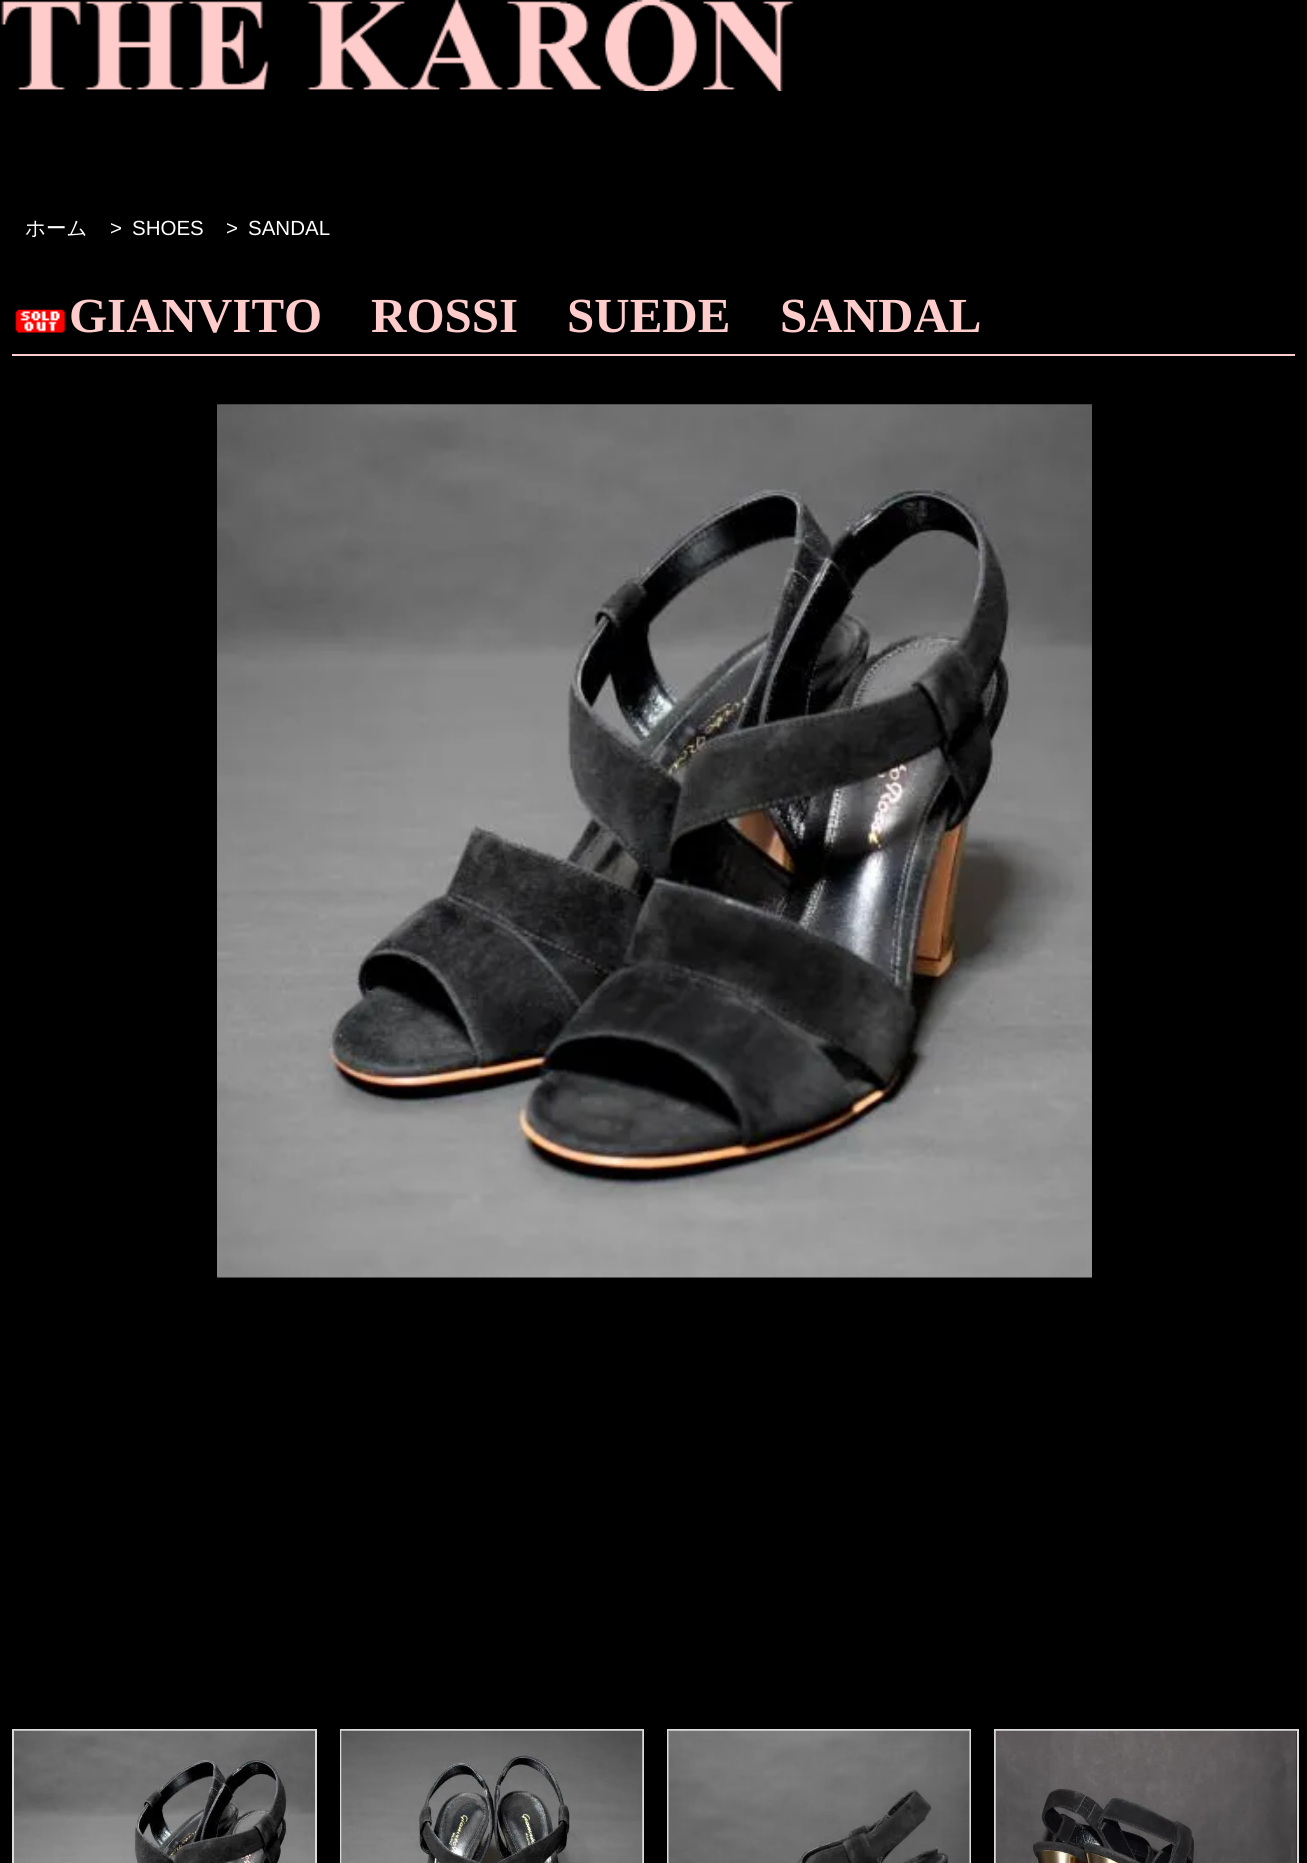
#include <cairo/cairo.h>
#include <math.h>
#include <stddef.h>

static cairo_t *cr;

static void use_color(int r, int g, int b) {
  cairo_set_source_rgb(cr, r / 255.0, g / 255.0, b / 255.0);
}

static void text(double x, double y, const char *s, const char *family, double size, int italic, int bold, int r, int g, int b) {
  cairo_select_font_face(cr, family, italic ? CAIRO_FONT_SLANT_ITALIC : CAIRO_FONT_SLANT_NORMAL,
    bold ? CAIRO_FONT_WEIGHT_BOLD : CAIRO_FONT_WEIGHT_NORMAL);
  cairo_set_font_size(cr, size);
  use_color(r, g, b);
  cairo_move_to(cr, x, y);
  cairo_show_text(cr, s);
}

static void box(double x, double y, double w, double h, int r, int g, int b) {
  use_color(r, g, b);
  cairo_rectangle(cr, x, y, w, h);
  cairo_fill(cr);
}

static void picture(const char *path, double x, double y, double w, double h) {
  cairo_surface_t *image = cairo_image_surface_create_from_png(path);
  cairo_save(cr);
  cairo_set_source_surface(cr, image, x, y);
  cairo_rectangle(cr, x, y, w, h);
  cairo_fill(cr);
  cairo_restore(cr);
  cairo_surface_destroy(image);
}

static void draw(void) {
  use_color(0, 0, 0);
  cairo_paint(cr);
  picture("img_01.png", 1, 0, 793, 91);
  box(12, 354, 1283, 2, 255, 204, 204);
  picture("img_02.png", 15, 309, 51, 24);
  picture("img_03.png", 217, 404, 875, 874);
  cairo_rectangle(cr, 13, 1730, 303, 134);
  use_color(219, 219, 219);
  cairo_stroke(cr);
  picture("img_04.png", 14, 1730, 301, 133);
  cairo_rectangle(cr, 341, 1730, 302, 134);
  cairo_stroke(cr);
  picture("img_05.png", 341, 1730, 302, 133);
  cairo_rectangle(cr, 668, 1730, 302, 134);
  cairo_stroke(cr);
  picture("img_06.png", 668, 1730, 302, 133);
  cairo_rectangle(cr, 995, 1730, 303, 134);
  cairo_stroke(cr);
  picture("img_07.png", 995, 1730, 302, 133);
  text(25, 235, "ホーム", "WenQuanYi Zen Hei Medium", 20.5, 0, 0, 255, 255, 255);
  text(110, 235, ">", "Liberation Sans", 20.5, 0, 0, 255, 255, 255);
  text(132, 235, "SHOES", "Liberation Sans", 20.5, 0, 0, 255, 255, 255);
  text(226, 235, ">", "Liberation Sans", 20.5, 0, 0, 255, 255, 255);
  text(248, 235, "SANDAL", "Liberation Sans", 20.5, 0, 0, 255, 255, 255);
  text(69, 332, "GIANVITO", "Liberation Serif", 49, 0, 1, 255, 204, 204);
  text(371, 332, "ROSSI", "Liberation Serif", 49, 0, 1, 255, 204, 204);
  text(567, 332, "SUEDE", "Liberation Serif", 49, 0, 1, 255, 204, 204);
  text(780, 332, "SANDAL", "Liberation Serif", 49, 0, 1, 255, 204, 204);
}

int main(void) {
  cairo_surface_t *surface = cairo_image_surface_create(CAIRO_FORMAT_RGB24, 1307, 1863);
  cr = cairo_create(surface);
  cairo_font_options_t *options = cairo_font_options_create();
  cairo_font_options_set_hint_metrics(options, CAIRO_HINT_METRICS_OFF);
  cairo_font_options_set_hint_style(options, CAIRO_HINT_STYLE_NONE);
  cairo_set_font_options(cr, options);
  cairo_set_miter_limit(cr, 4);
  draw();
  cairo_surface_write_to_png(surface, "out.png");
  cairo_font_options_destroy(options);
  cairo_destroy(cr);
  cairo_surface_destroy(surface);
  return 0;
}
